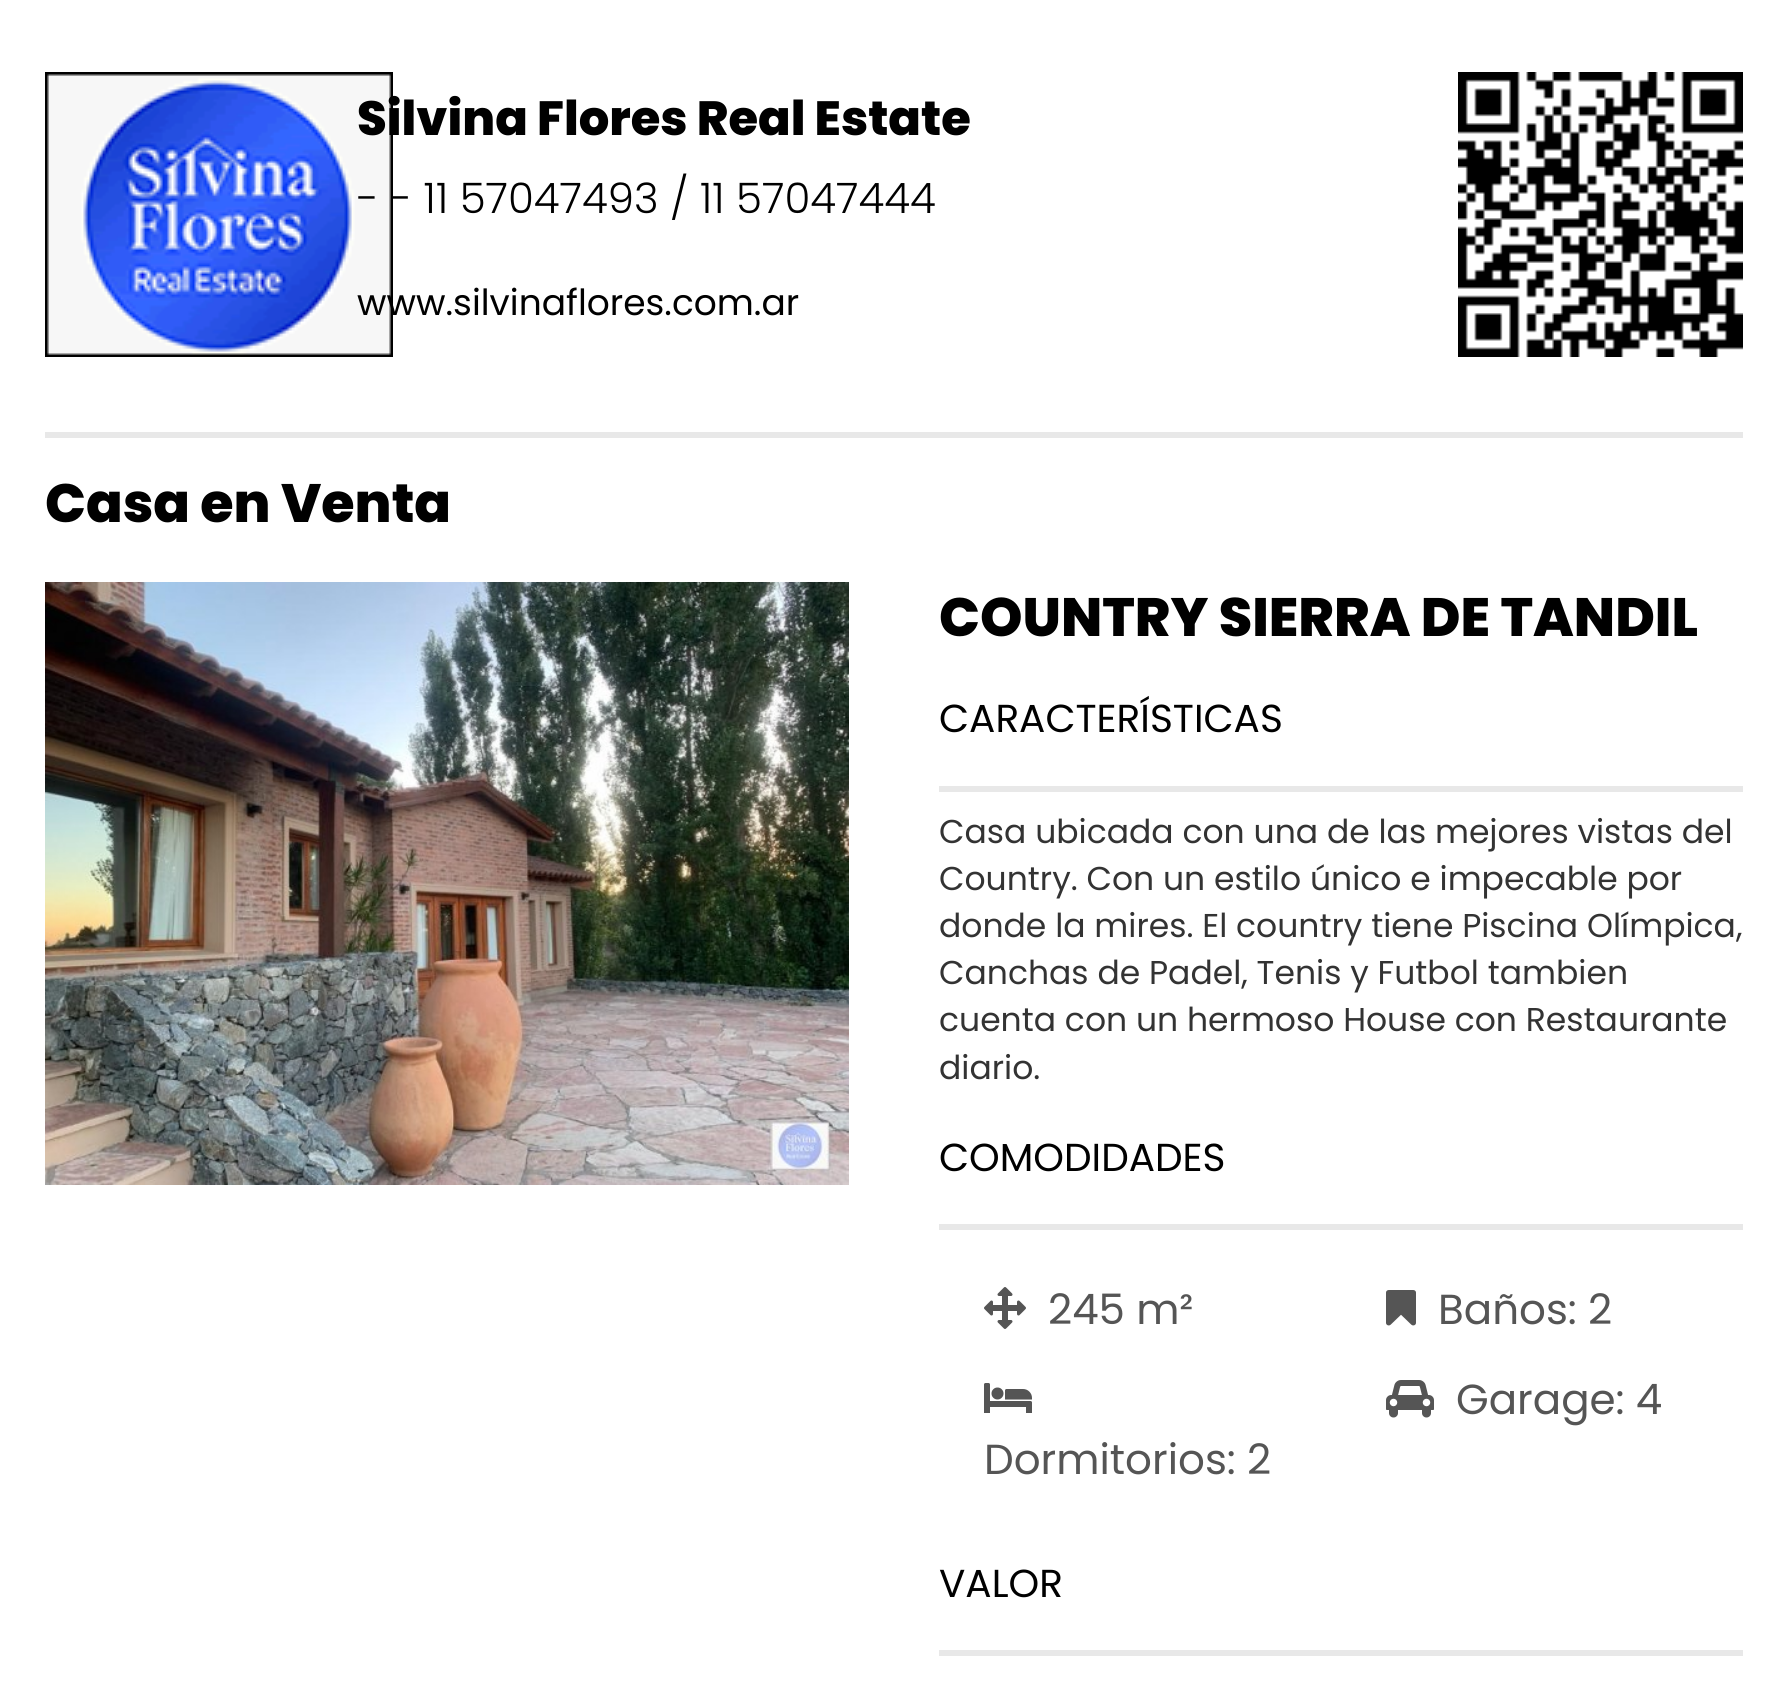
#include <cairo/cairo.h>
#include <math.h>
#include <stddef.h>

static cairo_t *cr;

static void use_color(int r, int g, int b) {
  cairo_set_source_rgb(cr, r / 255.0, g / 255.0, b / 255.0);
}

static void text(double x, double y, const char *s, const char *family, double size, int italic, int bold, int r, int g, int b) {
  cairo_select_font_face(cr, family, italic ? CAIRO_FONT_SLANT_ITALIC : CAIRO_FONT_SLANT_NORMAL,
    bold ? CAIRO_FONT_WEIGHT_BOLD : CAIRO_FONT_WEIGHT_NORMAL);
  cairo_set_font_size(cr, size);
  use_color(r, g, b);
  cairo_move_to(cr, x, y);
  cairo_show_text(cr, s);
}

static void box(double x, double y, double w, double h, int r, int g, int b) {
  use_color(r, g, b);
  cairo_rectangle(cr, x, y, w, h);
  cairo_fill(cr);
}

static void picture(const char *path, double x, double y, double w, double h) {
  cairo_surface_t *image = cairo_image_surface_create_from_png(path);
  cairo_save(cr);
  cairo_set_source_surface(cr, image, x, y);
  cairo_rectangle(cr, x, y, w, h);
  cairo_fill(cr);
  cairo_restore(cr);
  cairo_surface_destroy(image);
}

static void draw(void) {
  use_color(255, 255, 255);
  cairo_paint(cr);
  picture("img_01.png", 45, 72, 348, 285);
  picture("img_02.png", 1458, 72, 285, 285);
  box(45, 432, 1698, 6, 232, 232, 232);
  picture("img_03.png", 45, 582, 804, 603);
  box(939, 786, 804, 6, 232, 232, 232);
  box(939, 1224, 804, 6, 232, 232, 232);
  picture("img_04.png", 984, 1287, 42, 42);
  picture("img_05.png", 1386, 1290, 30, 36);
  picture("img_06.png", 1386, 1380, 48, 38);
  picture("img_07.png", 984, 1383, 48, 30);
  box(939, 1650, 804, 6, 232, 232, 232);
  text(357, 135, "Silvina Flores Real Estate", "Poppins ExtraBold", 48, 0, 0, 0, 0, 0);
  text(357, 213, "- - 11 57047493 / 11 57047444", "Poppins Light", 42, 0, 0, 0, 0, 0);
  text(357, 315, "www.silvinaflores.com.ar", "Poppins", 36, 0, 0, 0, 0, 0);
  text(45, 522, "Casa en Venta", "Poppins ExtraBold", 54, 0, 0, 0, 0, 0);
  text(939, 636, "COUNTRY SIERRA DE TANDIL", "Poppins ExtraBold", 54, 0, 0, 0, 0, 0);
  text(939, 732, "CARACTERÍSTICAS", "Poppins", 39, 0, 0, 0, 0, 0);
  text(939, 843, "Casa ubicada con una de las mejores vistas del", "Poppins", 33, 0, 0, 51, 51, 51);
  text(939, 890, "Country. Con un estilo único e impecable por", "Poppins", 33, 0, 0, 51, 51, 51);
  text(939, 937, "donde la mires. El country tiene Piscina Olímpica,", "Poppins", 33, 0, 0, 51, 51, 51);
  text(939, 984, "Canchas de Padel, Tenis y Futbol tambien", "Poppins", 33, 0, 0, 51, 51, 51);
  text(939, 1031, "cuenta con un hermoso House con Restaurante", "Poppins", 33, 0, 0, 51, 51, 51);
  text(939, 1079, "diario.", "Poppins", 33, 0, 0, 51, 51, 51);
  text(939, 1171, "COMODIDADES", "Poppins", 39, 0, 0, 0, 0, 0);
  text(1048, 1324, "245 m²", "Poppins", 42, 0, 0, 85, 85, 85);
  text(1438, 1324, "Baños: 2", "Poppins", 42, 0, 0, 85, 85, 85);
  text(1456, 1414, "Garage: 4", "Poppins", 42, 0, 0, 85, 85, 85);
  text(984, 1474, "Dormitorios: 2", "Poppins", 42, 0, 0, 85, 85, 85);
  text(939, 1597, "VALOR", "Poppins", 39, 0, 0, 0, 0, 0);
}

int main(void) {
  cairo_surface_t *surface = cairo_image_surface_create(CAIRO_FORMAT_RGB24, 1787, 1697);
  cr = cairo_create(surface);
  cairo_font_options_t *options = cairo_font_options_create();
  cairo_font_options_set_hint_metrics(options, CAIRO_HINT_METRICS_OFF);
  cairo_font_options_set_hint_style(options, CAIRO_HINT_STYLE_NONE);
  cairo_set_font_options(cr, options);
  cairo_set_miter_limit(cr, 4);
  draw();
  cairo_surface_write_to_png(surface, "out.png");
  cairo_font_options_destroy(options);
  cairo_destroy(cr);
  cairo_surface_destroy(surface);
  return 0;
}
